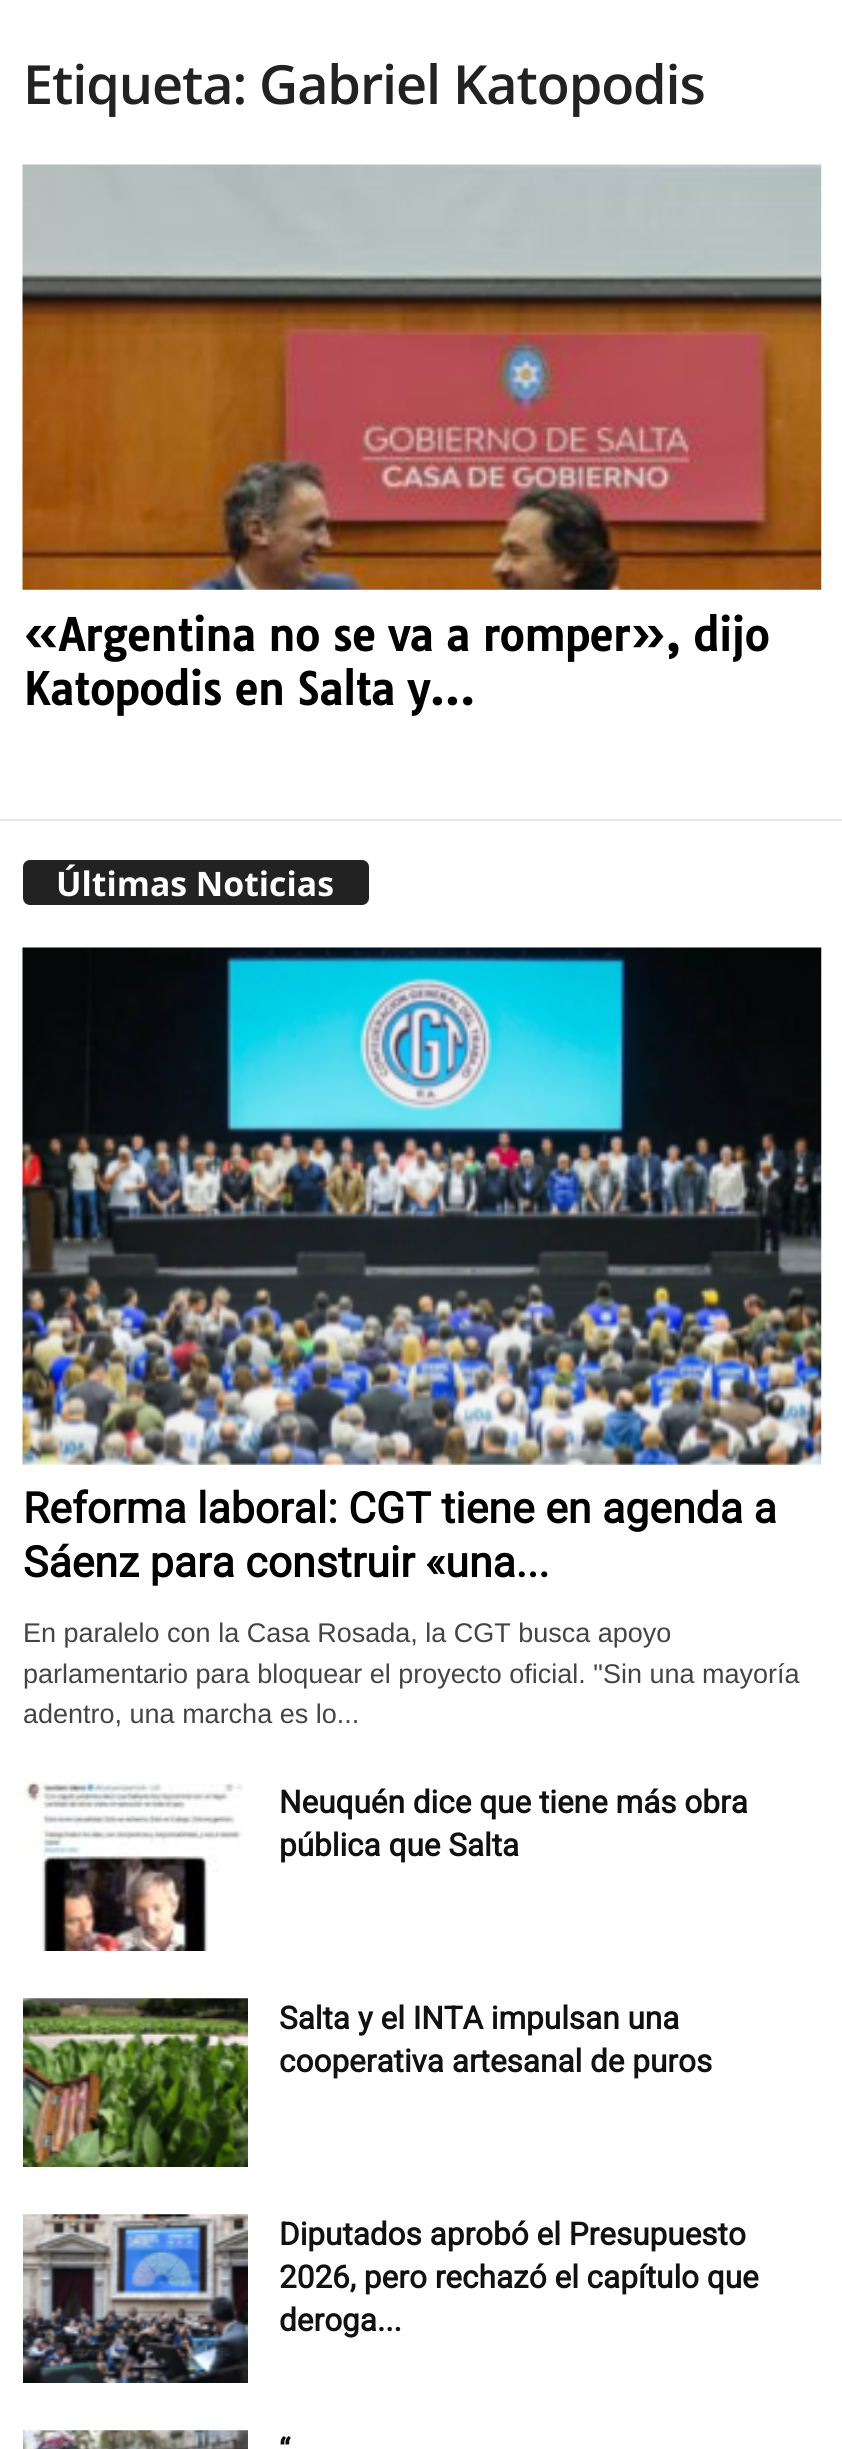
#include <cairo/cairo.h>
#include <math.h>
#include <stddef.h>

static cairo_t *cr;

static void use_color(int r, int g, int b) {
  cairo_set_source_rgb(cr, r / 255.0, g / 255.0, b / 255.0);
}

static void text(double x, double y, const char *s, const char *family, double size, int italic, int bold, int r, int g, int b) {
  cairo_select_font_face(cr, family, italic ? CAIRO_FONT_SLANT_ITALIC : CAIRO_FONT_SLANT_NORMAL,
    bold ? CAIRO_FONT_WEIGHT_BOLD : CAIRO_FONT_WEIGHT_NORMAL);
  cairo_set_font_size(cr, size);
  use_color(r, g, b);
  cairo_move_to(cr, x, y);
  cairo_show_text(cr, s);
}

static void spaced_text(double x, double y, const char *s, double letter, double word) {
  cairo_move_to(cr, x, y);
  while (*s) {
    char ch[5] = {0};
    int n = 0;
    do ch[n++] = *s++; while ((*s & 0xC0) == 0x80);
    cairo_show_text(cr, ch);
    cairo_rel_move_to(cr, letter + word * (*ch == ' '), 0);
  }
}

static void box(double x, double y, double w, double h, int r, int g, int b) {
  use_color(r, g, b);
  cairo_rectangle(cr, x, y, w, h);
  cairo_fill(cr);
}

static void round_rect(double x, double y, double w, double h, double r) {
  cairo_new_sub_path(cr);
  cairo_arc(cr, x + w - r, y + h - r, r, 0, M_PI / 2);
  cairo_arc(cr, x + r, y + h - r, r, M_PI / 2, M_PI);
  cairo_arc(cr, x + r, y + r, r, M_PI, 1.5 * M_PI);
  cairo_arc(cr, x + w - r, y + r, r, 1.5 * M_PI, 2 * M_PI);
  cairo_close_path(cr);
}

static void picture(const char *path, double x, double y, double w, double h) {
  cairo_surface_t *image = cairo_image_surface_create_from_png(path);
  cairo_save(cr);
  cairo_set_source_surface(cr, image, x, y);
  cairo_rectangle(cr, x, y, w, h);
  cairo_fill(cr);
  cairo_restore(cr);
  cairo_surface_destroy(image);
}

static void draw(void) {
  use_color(255, 255, 255);
  cairo_paint(cr);
  picture("img_01.png", 22, 164, 800, 426);
  box(0, 819, 842, 2, 230, 230, 230);
  use_color(34, 34, 34);
  round_rect(23, 860, 346, 45, 7);
  cairo_fill(cr);
  picture("img_02.png", 22, 947, 800, 518);
  picture("img_03.png", 23, 1782, 221, 169);
  picture("img_04.png", 23, 1998, 225, 169);
  picture("img_05.png", 23, 2214, 225, 169);
  picture("img_06.png", 23, 2430, 225, 19);
  cairo_select_font_face(cr, "Open Sans SemiBold", CAIRO_FONT_SLANT_NORMAL, CAIRO_FONT_WEIGHT_NORMAL);
  cairo_set_font_size(cr, 54);
  spaced_text(23, 104, "Etiqueta: Gabriel Katopodis", -1.1, 0);
  text(23, 651, "«Argentina no se va a romper», dijo", "Tauri", 42.75, 0, 1, 0, 0, 0);
  text(23, 705, "Katopodis en Salta y...", "Tauri", 42.75, 0, 1, 0, 0, 0);
  text(56, 896, "Últimas Noticias", "Open Sans", 33.75, 0, 1, 255, 255, 255);
  text(23, 1523, "Reforma laboral: CGT tiene en agenda a", "Roboto", 42.75, 0, 1, 0, 0, 0);
  text(23, 1577, "Sáenz para construir «una...", "Roboto", 42.75, 0, 1, 0, 0, 0);
  text(23, 1642, "En paralelo con la Casa Rosada, la CGT busca apoyo", "Liberation Sans", 27, 0, 0, 68, 68, 68);
  text(23, 1683, "parlamentario para bloquear el proyecto oficial. \"Sin una mayoría", "Liberation Sans", 27, 0, 0, 68, 68, 68);
  text(23, 1723, "adentro, una marcha es lo...", "Liberation Sans", 27, 0, 0, 68, 68, 68);
  text(279, 1813, "Neuquén dice que tiene más obra", "Roboto", 31.5, 0, 1, 17, 17, 17);
  text(279, 1856, "pública que Salta", "Roboto", 31.5, 0, 1, 17, 17, 17);
  text(279, 2029, "Salta y el INTA impulsan una", "Roboto", 31.5, 0, 1, 17, 17, 17);
  text(279, 2072, "cooperativa artesanal de puros", "Roboto", 31.5, 0, 1, 17, 17, 17);
  text(279, 2245, "Diputados aprobó el Presupuesto", "Roboto", 31.5, 0, 1, 17, 17, 17);
  text(279, 2288, "2026, pero rechazó el capítulo que", "Roboto", 31.5, 0, 1, 17, 17, 17);
  text(279, 2331, "deroga...", "Roboto", 31.5, 0, 1, 17, 17, 17);
  text(279, 2461, "“", "Roboto", 31.5, 0, 1, 17, 17, 17);
}

int main(void) {
  cairo_surface_t *surface = cairo_image_surface_create(CAIRO_FORMAT_RGB24, 842, 2449);
  cr = cairo_create(surface);
  cairo_font_options_t *options = cairo_font_options_create();
  cairo_font_options_set_hint_metrics(options, CAIRO_HINT_METRICS_OFF);
  cairo_font_options_set_hint_style(options, CAIRO_HINT_STYLE_NONE);
  cairo_set_font_options(cr, options);
  cairo_set_miter_limit(cr, 4);
  draw();
  cairo_surface_write_to_png(surface, "out.png");
  cairo_font_options_destroy(options);
  cairo_destroy(cr);
  cairo_surface_destroy(surface);
  return 0;
}
